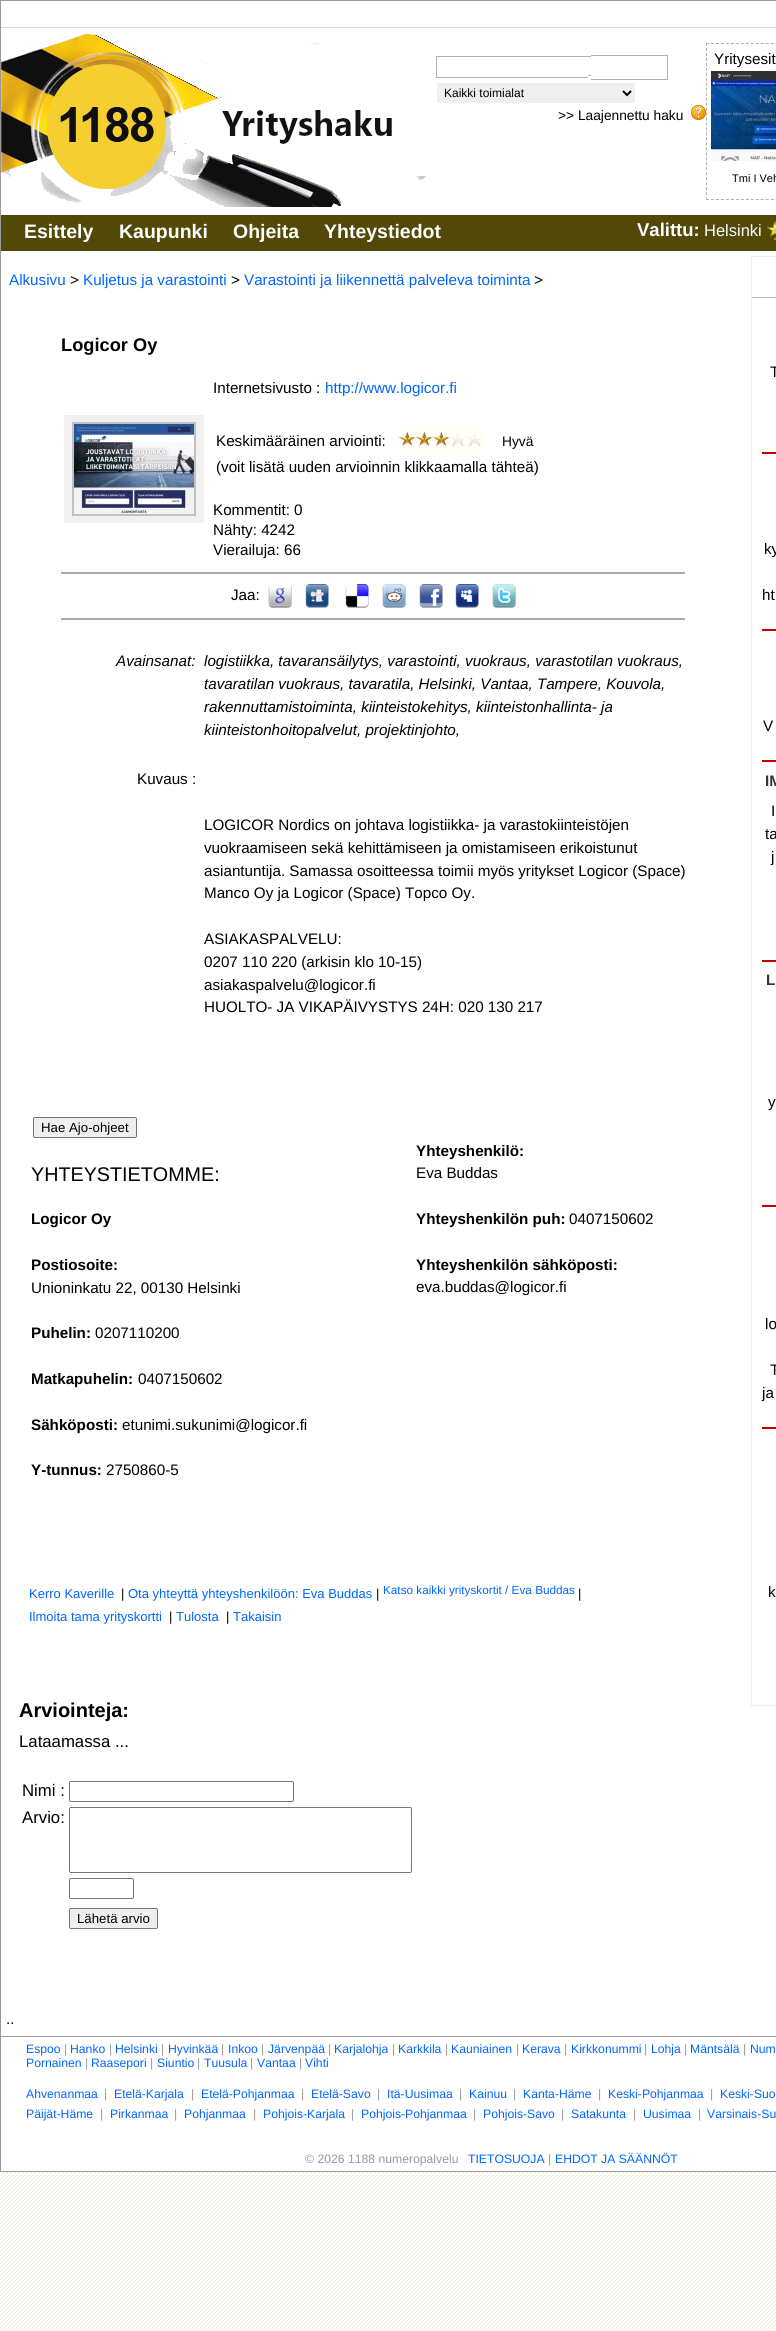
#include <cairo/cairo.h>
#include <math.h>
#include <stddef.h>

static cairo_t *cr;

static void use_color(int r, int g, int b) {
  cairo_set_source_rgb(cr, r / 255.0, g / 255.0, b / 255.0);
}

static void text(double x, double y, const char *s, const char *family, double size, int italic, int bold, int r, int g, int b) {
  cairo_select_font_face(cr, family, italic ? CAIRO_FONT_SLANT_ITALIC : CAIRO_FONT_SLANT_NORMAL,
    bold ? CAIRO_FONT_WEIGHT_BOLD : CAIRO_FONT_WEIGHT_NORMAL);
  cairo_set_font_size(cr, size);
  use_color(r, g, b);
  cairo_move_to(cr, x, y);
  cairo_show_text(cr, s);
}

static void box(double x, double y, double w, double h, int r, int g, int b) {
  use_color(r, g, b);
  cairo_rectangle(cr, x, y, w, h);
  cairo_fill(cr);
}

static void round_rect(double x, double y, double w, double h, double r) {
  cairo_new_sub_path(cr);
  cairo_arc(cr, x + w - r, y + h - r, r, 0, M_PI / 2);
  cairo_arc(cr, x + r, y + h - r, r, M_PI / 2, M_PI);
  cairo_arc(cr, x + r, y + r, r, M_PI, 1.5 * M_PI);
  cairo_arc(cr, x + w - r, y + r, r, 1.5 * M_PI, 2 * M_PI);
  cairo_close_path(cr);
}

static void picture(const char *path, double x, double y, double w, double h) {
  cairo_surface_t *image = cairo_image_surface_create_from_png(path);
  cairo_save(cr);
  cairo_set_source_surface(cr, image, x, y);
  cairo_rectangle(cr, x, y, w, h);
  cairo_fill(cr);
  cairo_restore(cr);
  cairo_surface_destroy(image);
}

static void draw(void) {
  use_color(255, 255, 255);
  cairo_paint(cr);
  picture("img_01.png", 0, 2172, 776, 159);
  cairo_rectangle(cr, 0.5, 0.5, 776, 2171);
  use_color(153, 153, 153);
  cairo_set_line_width(cr, 1);
  cairo_stroke(cr);
  box(1, 27, 775, 1, 221, 221, 221);
  picture("img_02.png", 1, 34, 425, 173);
  box(591, 55, 77, 1, 178, 178, 178);
  box(436, 56, 155, 1, 178, 178, 178);
  box(667, 55, 1, 25, 178, 178, 178);
  box(436, 77, 152, 1, 178, 178, 178);
  box(436, 56, 1, 22, 178, 178, 178);
  box(588, 75, 3, 1, 178, 178, 178);
  box(591, 79, 77, 1, 178, 178, 178);
  box(437, 83, 198, 20, 239, 239, 239);
  cairo_new_path(cr);
  cairo_move_to(cr, 623, 91);
  cairo_line_to(cr, 627, 95);
  cairo_line_to(cr, 631, 91);
  use_color(0, 0, 0);
  cairo_set_line_width(cr, 2);
  cairo_stroke(cr);
  picture("img_03.png", 691, 105, 15, 15);
  cairo_new_path(cr);
  cairo_move_to(cr, 706, 43.5);
  cairo_line_to(cr, 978, 43.5);
  use_color(178, 178, 178);
  cairo_set_line_width(cr, 1);
  cairo_set_dash(cr, (double[]){3, 1.98}, 2, 0);
  cairo_stroke(cr);
  cairo_new_path(cr);
  cairo_move_to(cr, 706, 199.5);
  cairo_line_to(cr, 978, 199.5);
  cairo_stroke(cr);
  cairo_new_path(cr);
  cairo_move_to(cr, 706.5, 43);
  cairo_line_to(cr, 706.5, 200);
  cairo_set_dash(cr, (double[]){3, 1.97}, 2, 0);
  cairo_stroke(cr);
  picture("img_04.png", 711, 71, 65, 90);
  box(1, 215, 775, 36, 82, 73, 8);
  picture("img_05.png", 767, 221, 9, 19);
  box(64, 415, 140, 108, 240, 240, 240);
  cairo_rectangle(cr, 73, 423, 122, 92);
  use_color(192, 192, 192);
  cairo_set_line_width(cr, 2);
  cairo_set_dash(cr, NULL, 0, 0);
  cairo_stroke(cr);
  picture("img_06.png", 74, 424, 120, 90);
  picture("img_07.png", 398, 428, 17, 22);
  picture("img_07.png", 415, 428, 17, 22);
  picture("img_07.png", 432, 428, 17, 22);
  picture("img_08.png", 449, 428, 17, 22);
  picture("img_08.png", 466, 428, 17, 22);
  box(61, 572, 624, 2, 170, 170, 170);
  box(61, 618, 624, 2, 170, 170, 170);
  picture("img_09.png", 268, 585, 24, 23);
  picture("img_10.png", 305, 584, 24, 24);
  picture("img_11.png", 345, 584, 24, 24);
  picture("img_12.png", 382, 584, 24, 24);
  picture("img_13.png", 419, 584, 24, 24);
  picture("img_14.png", 455, 584, 24, 24);
  picture("img_15.png", 492, 584, 24, 24);
  use_color(239, 239, 239);
  round_rect(33.5, 1117.5, 103, 20, 1.5);
  cairo_fill_preserve(cr);
  use_color(118, 118, 118);
  cairo_set_line_width(cr, 1);
  cairo_stroke(cr);
  round_rect(69.5, 1781.5, 224, 20, 1.5);
  cairo_stroke(cr);
  round_rect(69.5, 1807.5, 342, 65, 1.5);
  cairo_stroke(cr);
  round_rect(69.5, 1878.5, 64, 20, 1.5);
  cairo_stroke(cr);
  use_color(239, 239, 239);
  round_rect(69.5, 1908.5, 88, 20, 1.5);
  cairo_fill_preserve(cr);
  use_color(118, 118, 118);
  cairo_stroke(cr);
  cairo_rectangle(cr, 751.5, 256.5, 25, 1449);
  use_color(238, 238, 238);
  cairo_stroke(cr);
  box(752, 297, 24, 1, 178, 178, 178);
  box(762, 452, 14, 2, 195, 0, 0);
  box(762, 629, 14, 2, 195, 0, 0);
  box(762, 760, 14, 2, 195, 0, 0);
  box(762, 960, 14, 2, 195, 0, 0);
  box(762, 1205, 14, 2, 195, 0, 0);
  box(762, 1427, 14, 2, 195, 0, 0);
  box(1, 2036, 775, 1, 153, 153, 153);
  text(444, 97, "Kaikki toimialat", "Liberation Sans", 12, 0, 0, 0, 0, 0);
  text(558, 120, ">> Laajennettu haku", "Liberation Sans", 13.75, 0, 0, 0, 0, 0);
  text(714, 64, "Yritysesit", "Liberation Sans", 15.2, 0, 0, 0, 0, 0);
  text(732, 182, "Tmi I Veh", "Liberation Sans", 11, 0, 0, 0, 0, 0);
  text(24, 238, "Esittely", "Liberation Sans", 19.5, 0, 1, 255, 255, 255);
  text(119, 238, "Kaupunki", "Liberation Sans", 19.5, 0, 1, 255, 255, 255);
  text(233, 238, "Ohjeita", "Liberation Sans", 19.5, 0, 1, 255, 255, 255);
  text(324, 238, "Yhteystiedot", "Liberation Sans", 19.5, 0, 1, 255, 255, 255);
  text(637, 236, "Valittu:", "Liberation Sans", 18.5, 0, 1, 255, 255, 255);
  text(704, 236, "Helsinki", "Liberation Sans", 16.5, 0, 0, 255, 255, 255);
  text(9, 285, "Alkusivu", "Liberation Sans", 15.2, 0, 0, 0, 102, 255);
  text(70, 285, ">", "Liberation Sans", 15.2, 0, 0, 0, 0, 0);
  text(83, 285, "Kuljetus ja varastointi", "Liberation Sans", 15.2, 0, 0, 0, 102, 255);
  text(231, 285, ">", "Liberation Sans", 15.2, 0, 0, 0, 0, 0);
  text(244, 285, "Varastointi ja liikennettä palveleva toiminta", "Liberation Sans", 15.2, 0, 0, 0, 102, 255);
  text(534, 285, ">", "Liberation Sans", 15.2, 0, 0, 0, 0, 0);
  text(61, 351, "Logicor Oy", "Liberation Sans", 18.25, 0, 1, 0, 0, 0);
  text(213, 393, "Internetsivusto :", "Liberation Sans", 15.2, 0, 0, 0, 0, 0);
  text(325, 393, "http://www.logicor.fi", "Liberation Sans", 15.2, 0, 0, 0, 102, 255);
  text(216, 446, "Keskimääräinen arviointi:", "Liberation Sans", 15.2, 0, 0, 0, 0, 0);
  text(502, 446, "Hyvä", "Liberation Sans", 13.75, 0, 0, 0, 0, 0);
  text(216, 472, "(voit lisätä uuden arvioinnin klikkaamalla tähteä)", "Liberation Sans", 15.2, 0, 0, 0, 0, 0);
  text(213, 515, "Kommentit: 0", "Liberation Sans", 15.2, 0, 0, 0, 0, 0);
  text(213, 535, "Nähty: 4242", "Liberation Sans", 15.2, 0, 0, 0, 0, 0);
  text(213, 555, "Vierailuja: 66", "Liberation Sans", 15.2, 0, 0, 0, 0, 0);
  text(231, 600, "Jaa:", "Liberation Sans", 15.2, 0, 0, 0, 0, 0);
  text(116, 666, "Avainsanat:", "Liberation Sans", 15.2, 1, 0, 0, 0, 0);
  text(204, 666, "logistiikka, tavaransäilytys, varastointi, vuokraus, varastotilan vuokraus,", "Liberation Sans", 15.2, 1, 0, 0, 0, 0);
  text(204, 689, "tavaratilan vuokraus, tavaratila, Helsinki, Vantaa, Tampere, Kouvola,", "Liberation Sans", 15.2, 1, 0, 0, 0, 0);
  text(204, 712, "rakennuttamistoiminta, kiinteistokehitys, kiinteistonhallinta- ja", "Liberation Sans", 15.2, 1, 0, 0, 0, 0);
  text(204, 735, "kiinteistonhoitopalvelut, projektinjohto,", "Liberation Sans", 15.2, 1, 0, 0, 0, 0);
  text(137, 784, "Kuvaus :", "Liberation Sans", 15.2, 0, 0, 0, 0, 0);
  text(204, 830, "LOGICOR Nordics on johtava logistiikka- ja varastokiinteistöjen", "Liberation Sans", 15.2, 0, 0, 0, 0, 0);
  text(204, 853, "vuokraamiseen sekä kehittämiseen ja omistamiseen erikoistunut", "Liberation Sans", 15.2, 0, 0, 0, 0, 0);
  text(204, 876, "asiantuntija. Samassa osoitteessa toimii myös yritykset Logicor (Space)", "Liberation Sans", 15.2, 0, 0, 0, 0, 0);
  text(204, 898, "Manco Oy ja Logicor (Space) Topco Oy.", "Liberation Sans", 15.2, 0, 0, 0, 0, 0);
  text(204, 944, "ASIAKASPALVELU:", "Liberation Sans", 15.2, 0, 0, 0, 0, 0);
  text(204, 967, "0207 110 220 (arkisin klo 10-15)", "Liberation Sans", 15.2, 0, 0, 0, 0, 0);
  text(204, 990, "asiakaspalvelu@logicor.fi", "Liberation Sans", 15.2, 0, 0, 0, 0, 0);
  text(204, 1012, "HUOLTO- JA VIKAPÄIVYSTYS 24H: 020 130 217", "Liberation Sans", 15.2, 0, 0, 0, 0, 0);
  text(41, 1132, "Hae Ajo-ohjeet", "Liberation Sans", 13.25, 0, 0, 0, 0, 0);
  text(31, 1181, "YHTEYSTIETOMME:", "Liberation Sans", 19.75, 0, 0, 0, 0, 0);
  text(31, 1224, "Logicor Oy", "Liberation Sans", 15.2, 0, 1, 0, 0, 0);
  text(31, 1270, "Postiosoite:", "Liberation Sans", 15.2, 0, 1, 0, 0, 0);
  text(31, 1293, "Unioninkatu 22, 00130 Helsinki", "Liberation Sans", 15.2, 0, 0, 0, 0, 0);
  text(31, 1338, "Puhelin:", "Liberation Sans", 15.2, 0, 1, 0, 0, 0);
  text(95, 1338, "0207110200", "Liberation Sans", 15.2, 0, 0, 0, 0, 0);
  text(31, 1384, "Matkapuhelin:", "Liberation Sans", 15.2, 0, 1, 0, 0, 0);
  text(138, 1384, "0407150602", "Liberation Sans", 15.2, 0, 0, 0, 0, 0);
  text(31, 1430, "Sähköposti:", "Liberation Sans", 15.2, 0, 1, 0, 0, 0);
  text(122, 1430, "etunimi.sukunimi@logicor.fi", "Liberation Sans", 15.2, 0, 0, 0, 0, 0);
  text(31, 1475, "Y-tunnus:", "Liberation Sans", 15.2, 0, 1, 0, 0, 0);
  text(106, 1475, "2750860-5", "Liberation Sans", 15.2, 0, 0, 0, 0, 0);
  text(416, 1156, "Yhteyshenkilö:", "Liberation Sans", 15.2, 0, 1, 0, 0, 0);
  text(416, 1178, "Eva Buddas", "Liberation Sans", 15.2, 0, 0, 0, 0, 0);
  text(416, 1224, "Yhteyshenkilön puh:", "Liberation Sans", 15.2, 0, 1, 0, 0, 0);
  text(569, 1224, "0407150602", "Liberation Sans", 15.2, 0, 0, 0, 0, 0);
  text(416, 1270, "Yhteyshenkilön sähköposti:", "Liberation Sans", 15.2, 0, 1, 0, 0, 0);
  text(416, 1292, "eva.buddas@logicor.fi", "Liberation Sans", 15.2, 0, 0, 0, 0, 0);
  text(29, 1598, "Kerro Kaverille", "Liberation Sans", 13, 0, 0, 0, 102, 255);
  text(121, 1598, "|", "Liberation Sans", 13, 0, 0, 0, 0, 0);
  text(128, 1598, "Ota yhteyttä yhteyshenkilöön: Eva Buddas", "Liberation Sans", 13, 0, 0, 0, 102, 255);
  text(376, 1598, "|", "Liberation Sans", 13, 0, 0, 0, 0, 0);
  text(383, 1594, "Katso kaikki yrityskortit / Eva Buddas", "Liberation Sans", 11.75, 0, 0, 0, 102, 255);
  text(578, 1598, "|", "Liberation Sans", 13, 0, 0, 0, 0, 0);
  text(29, 1621, "Ilmoita tama yrityskortti", "Liberation Sans", 13, 0, 0, 0, 102, 255);
  text(169, 1621, "|", "Liberation Sans", 13, 0, 0, 0, 0, 0);
  text(176, 1621, "Tulosta", "Liberation Sans", 13, 0, 0, 0, 102, 255);
  text(226, 1621, "|", "Liberation Sans", 13, 0, 0, 0, 0, 0);
  text(233, 1621, "Takaisin", "Liberation Sans", 13, 0, 0, 0, 102, 255);
  text(19, 1717, "Arviointeja:", "Liberation Sans", 20, 0, 1, 0, 0, 0);
  text(19, 1747, "Lataamassa ...", "Liberation Sans", 16.75, 0, 0, 0, 0, 0);
  text(22, 1796, "Nimi :", "Liberation Sans", 16.75, 0, 0, 0, 0, 0);
  text(22, 1823, "Arvio:", "Liberation Sans", 16.75, 0, 0, 0, 0, 0);
  text(77, 1923, "Lähetä arvio", "Liberation Sans", 13.25, 0, 0, 0, 0, 0);
  text(6, 2024, "..", "Liberation Sans", 15.2, 0, 0, 0, 0, 0);
  text(770, 377, "T", "Liberation Sans", 15.2, 0, 0, 0, 0, 0);
  text(764, 554, "ky", "Liberation Sans", 15.2, 0, 0, 0, 0, 0);
  text(762, 600, "ht", "Liberation Sans", 15.2, 0, 0, 0, 0, 0);
  text(763, 731, "V", "Liberation Sans", 15.2, 0, 0, 0, 0, 0);
  text(765, 786, "IM", "Liberation Sans", 15.2, 0, 1, 51, 51, 51);
  text(771, 816, "I", "Liberation Sans", 15.2, 0, 0, 0, 0, 0);
  text(765, 839, "ta", "Liberation Sans", 15.2, 0, 0, 0, 0, 0);
  text(771, 862, "j", "Liberation Sans", 15.2, 0, 0, 0, 0, 0);
  text(766, 985, "L", "Liberation Sans", 15.2, 0, 1, 51, 51, 51);
  text(768, 1107, "y", "Liberation Sans", 15.2, 0, 0, 0, 0, 0);
  text(765, 1329, "lo", "Liberation Sans", 15.2, 0, 0, 0, 0, 0);
  text(770, 1375, "T", "Liberation Sans", 15.2, 0, 0, 0, 0, 0);
  text(762, 1398, "ja", "Liberation Sans", 15.2, 0, 0, 0, 0, 0);
  text(768, 1597, "k", "Liberation Sans", 15.2, 0, 0, 0, 0, 0);
  text(26, 2053, "Espoo", "Liberation Sans", 12.2, 0, 0, 0, 102, 255);
  text(64, 2053, "|", "Liberation Sans", 12.2, 0, 0, 153, 153, 153);
  text(70, 2053, "Hanko", "Liberation Sans", 12.2, 0, 0, 0, 102, 255);
  text(109, 2053, "|", "Liberation Sans", 12.2, 0, 0, 153, 153, 153);
  text(115, 2053, "Helsinki", "Liberation Sans", 12.2, 0, 0, 0, 102, 255);
  text(161, 2053, "|", "Liberation Sans", 12.2, 0, 0, 153, 153, 153);
  text(168, 2053, "Hyvinkää", "Liberation Sans", 12.2, 0, 0, 0, 102, 255);
  text(221, 2053, "|", "Liberation Sans", 12.2, 0, 0, 153, 153, 153);
  text(228, 2053, "Inkoo", "Liberation Sans", 12.2, 0, 0, 0, 102, 255);
  text(261, 2053, "|", "Liberation Sans", 12.2, 0, 0, 153, 153, 153);
  text(268, 2053, "Järvenpää", "Liberation Sans", 12.2, 0, 0, 0, 102, 255);
  text(328, 2053, "|", "Liberation Sans", 12.2, 0, 0, 153, 153, 153);
  text(334, 2053, "Karjalohja", "Liberation Sans", 12.2, 0, 0, 0, 102, 255);
  text(392, 2053, "|", "Liberation Sans", 12.2, 0, 0, 153, 153, 153);
  text(398, 2053, "Karkkila", "Liberation Sans", 12.2, 0, 0, 0, 102, 255);
  text(445, 2053, "|", "Liberation Sans", 12.2, 0, 0, 153, 153, 153);
  text(451, 2053, "Kauniainen", "Liberation Sans", 12.2, 0, 0, 0, 102, 255);
  text(516, 2053, "|", "Liberation Sans", 12.2, 0, 0, 153, 153, 153);
  text(522, 2053, "Kerava", "Liberation Sans", 12.2, 0, 0, 0, 102, 255);
  text(564, 2053, "|", "Liberation Sans", 12.2, 0, 0, 153, 153, 153);
  text(571, 2053, "Kirkkonummi", "Liberation Sans", 12.2, 0, 0, 0, 102, 255);
  text(644, 2053, "|", "Liberation Sans", 12.2, 0, 0, 153, 153, 153);
  text(651, 2053, "Lohja", "Liberation Sans", 12.2, 0, 0, 0, 102, 255);
  text(684, 2053, "|", "Liberation Sans", 12.2, 0, 0, 153, 153, 153);
  text(690, 2053, "Mäntsälä", "Liberation Sans", 12.2, 0, 0, 0, 102, 255);
  text(743, 2053, "|", "Liberation Sans", 12.2, 0, 0, 153, 153, 153);
  text(750, 2053, "Num", "Liberation Sans", 12.2, 0, 0, 0, 102, 255);
  text(26, 2067, "Pornainen", "Liberation Sans", 12.2, 0, 0, 0, 102, 255);
  text(85, 2067, "|", "Liberation Sans", 12.2, 0, 0, 153, 153, 153);
  text(91, 2067, "Raasepori", "Liberation Sans", 12.2, 0, 0, 0, 102, 255);
  text(150, 2067, "|", "Liberation Sans", 12.2, 0, 0, 153, 153, 153);
  text(157, 2067, "Siuntio", "Liberation Sans", 12.2, 0, 0, 0, 102, 255);
  text(197, 2067, "|", "Liberation Sans", 12.2, 0, 0, 153, 153, 153);
  text(204, 2067, "Tuusula", "Liberation Sans", 12.2, 0, 0, 0, 102, 255);
  text(250, 2067, "|", "Liberation Sans", 12.2, 0, 0, 153, 153, 153);
  text(257, 2067, "Vantaa", "Liberation Sans", 12.2, 0, 0, 0, 102, 255);
  text(299, 2067, "|", "Liberation Sans", 12.2, 0, 0, 153, 153, 153);
  text(305, 2067, "Vihti", "Liberation Sans", 12.2, 0, 0, 0, 102, 255);
  text(26, 2098, "Ahvenanmaa", "Liberation Sans", 12.2, 0, 0, 0, 102, 255);
  text(104, 2098, "|", "Liberation Sans", 12.2, 0, 0, 153, 153, 153);
  text(114, 2098, "Etelä-Karjala", "Liberation Sans", 12.2, 0, 0, 0, 102, 255);
  text(191, 2098, "|", "Liberation Sans", 12.2, 0, 0, 153, 153, 153);
  text(201, 2098, "Etelä-Pohjanmaa", "Liberation Sans", 12.2, 0, 0, 0, 102, 255);
  text(301, 2098, "|", "Liberation Sans", 12.2, 0, 0, 153, 153, 153);
  text(311, 2098, "Etelä-Savo", "Liberation Sans", 12.2, 0, 0, 0, 102, 255);
  text(377, 2098, "|", "Liberation Sans", 12.2, 0, 0, 153, 153, 153);
  text(387, 2098, "Itä-Uusimaa", "Liberation Sans", 12.2, 0, 0, 0, 102, 255);
  text(459, 2098, "|", "Liberation Sans", 12.2, 0, 0, 153, 153, 153);
  text(469, 2098, "Kainuu", "Liberation Sans", 12.2, 0, 0, 0, 102, 255);
  text(513, 2098, "|", "Liberation Sans", 12.2, 0, 0, 153, 153, 153);
  text(523, 2098, "Kanta-Häme", "Liberation Sans", 12.2, 0, 0, 0, 102, 255);
  text(598, 2098, "|", "Liberation Sans", 12.2, 0, 0, 153, 153, 153);
  text(608, 2098, "Keski-Pohjanmaa", "Liberation Sans", 12.2, 0, 0, 0, 102, 255);
  text(710, 2098, "|", "Liberation Sans", 12.2, 0, 0, 153, 153, 153);
  text(720, 2098, "Keski-Suo", "Liberation Sans", 12.2, 0, 0, 0, 102, 255);
  text(26, 2118, "Päijät-Häme", "Liberation Sans", 12.2, 0, 0, 0, 102, 255);
  text(100, 2118, "|", "Liberation Sans", 12.2, 0, 0, 153, 153, 153);
  text(110, 2118, "Pirkanmaa", "Liberation Sans", 12.2, 0, 0, 0, 102, 255);
  text(174, 2118, "|", "Liberation Sans", 12.2, 0, 0, 153, 153, 153);
  text(184, 2118, "Pohjanmaa", "Liberation Sans", 12.2, 0, 0, 0, 102, 255);
  text(253, 2118, "|", "Liberation Sans", 12.2, 0, 0, 153, 153, 153);
  text(263, 2118, "Pohjois-Karjala", "Liberation Sans", 12.2, 0, 0, 0, 102, 255);
  text(351, 2118, "|", "Liberation Sans", 12.2, 0, 0, 153, 153, 153);
  text(361, 2118, "Pohjois-Pohjanmaa", "Liberation Sans", 12.2, 0, 0, 0, 102, 255);
  text(473, 2118, "|", "Liberation Sans", 12.2, 0, 0, 153, 153, 153);
  text(483, 2118, "Pohjois-Savo", "Liberation Sans", 12.2, 0, 0, 0, 102, 255);
  text(561, 2118, "|", "Liberation Sans", 12.2, 0, 0, 153, 153, 153);
  text(571, 2118, "Satakunta", "Liberation Sans", 12.2, 0, 0, 0, 102, 255);
  text(633, 2118, "|", "Liberation Sans", 12.2, 0, 0, 153, 153, 153);
  text(643, 2118, "Uusimaa", "Liberation Sans", 12.2, 0, 0, 0, 102, 255);
  text(698, 2118, "|", "Liberation Sans", 12.2, 0, 0, 153, 153, 153);
  text(707, 2118, "Varsinais-Su", "Liberation Sans", 12.2, 0, 0, 0, 102, 255);
  text(305, 2163, "© 2026 1188 numeropalvelu", "Liberation Sans", 12.2, 0, 0, 153, 153, 153);
  text(468, 2163, "TIETOSUOJA", "Liberation Sans", 12.2, 0, 0, 0, 102, 255);
  text(548, 2163, "|", "Liberation Sans", 12.2, 0, 0, 153, 153, 153);
  text(555, 2163, "EHDOT JA SÄÄNNÖT", "Liberation Sans", 12.2, 0, 0, 0, 102, 255);
}

int main(void) {
  cairo_surface_t *surface = cairo_image_surface_create(CAIRO_FORMAT_RGB24, 776, 2331);
  cr = cairo_create(surface);
  cairo_font_options_t *options = cairo_font_options_create();
  cairo_font_options_set_hint_metrics(options, CAIRO_HINT_METRICS_OFF);
  cairo_font_options_set_hint_style(options, CAIRO_HINT_STYLE_NONE);
  cairo_set_font_options(cr, options);
  cairo_set_miter_limit(cr, 4);
  draw();
  cairo_surface_write_to_png(surface, "out.png");
  cairo_font_options_destroy(options);
  cairo_destroy(cr);
  cairo_surface_destroy(surface);
  return 0;
}
